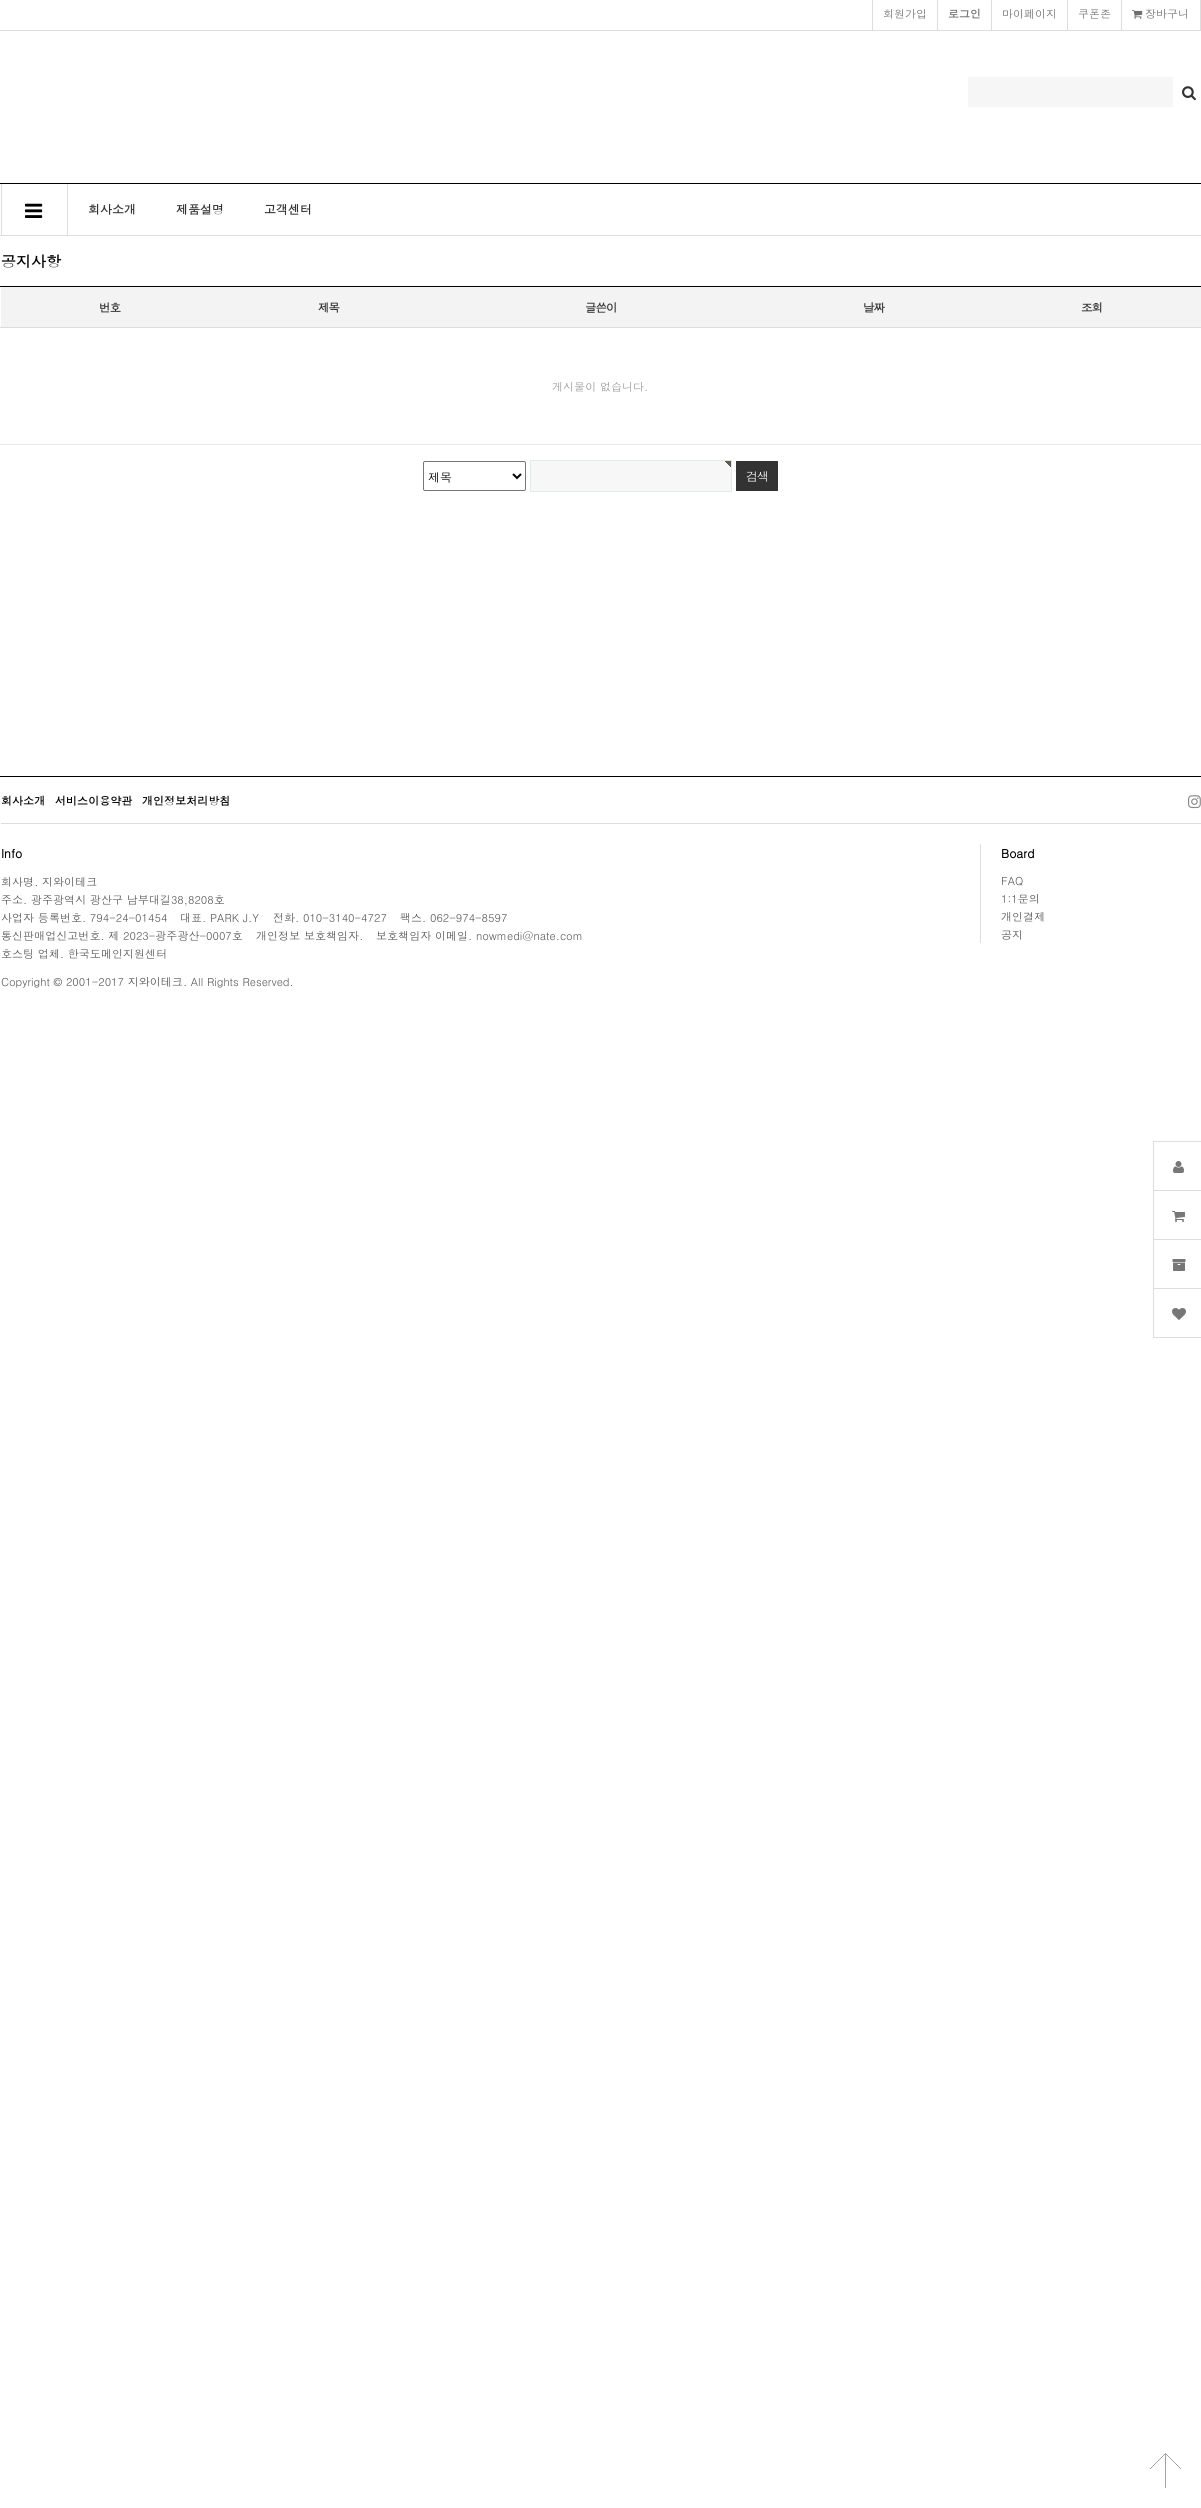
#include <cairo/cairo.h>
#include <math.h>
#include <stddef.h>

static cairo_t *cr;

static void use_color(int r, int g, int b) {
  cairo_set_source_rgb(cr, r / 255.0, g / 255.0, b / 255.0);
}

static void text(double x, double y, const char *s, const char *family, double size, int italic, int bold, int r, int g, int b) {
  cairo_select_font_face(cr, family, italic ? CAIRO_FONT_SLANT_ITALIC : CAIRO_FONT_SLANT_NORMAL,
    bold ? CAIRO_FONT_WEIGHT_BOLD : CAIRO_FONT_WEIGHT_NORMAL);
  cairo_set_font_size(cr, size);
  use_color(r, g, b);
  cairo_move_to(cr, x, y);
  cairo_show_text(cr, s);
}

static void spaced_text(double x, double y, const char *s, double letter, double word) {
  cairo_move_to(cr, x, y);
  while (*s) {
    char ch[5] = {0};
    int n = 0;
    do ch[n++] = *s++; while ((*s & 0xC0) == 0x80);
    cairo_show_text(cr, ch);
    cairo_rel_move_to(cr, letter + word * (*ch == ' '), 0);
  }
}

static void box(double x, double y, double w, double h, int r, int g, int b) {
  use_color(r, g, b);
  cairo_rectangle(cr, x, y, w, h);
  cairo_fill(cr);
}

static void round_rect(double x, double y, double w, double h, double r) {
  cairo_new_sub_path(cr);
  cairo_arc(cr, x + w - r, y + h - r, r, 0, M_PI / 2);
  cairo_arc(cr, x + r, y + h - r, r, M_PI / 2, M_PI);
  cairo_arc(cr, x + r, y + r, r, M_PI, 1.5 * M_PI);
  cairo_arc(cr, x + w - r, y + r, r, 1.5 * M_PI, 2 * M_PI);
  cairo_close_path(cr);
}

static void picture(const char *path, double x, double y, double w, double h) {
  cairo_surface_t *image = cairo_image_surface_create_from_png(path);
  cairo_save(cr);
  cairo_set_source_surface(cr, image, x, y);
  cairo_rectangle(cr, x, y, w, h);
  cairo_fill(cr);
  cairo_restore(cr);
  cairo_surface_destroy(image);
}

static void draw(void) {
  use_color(255, 255, 255);
  cairo_paint(cr);
  box(0, 30, 1201, 1, 221, 221, 221);
  box(872, 0, 1, 30, 221, 221, 221);
  box(937, 0, 1, 30, 221, 221, 221);
  box(991, 0, 1, 30, 221, 221, 221);
  box(1067, 0, 1, 30, 221, 221, 221);
  box(1200, 0, 1, 30, 221, 221, 221);
  box(1121, 0, 1, 30, 221, 221, 221);
  picture("img_01.png", 1132, 10, 11, 9);
  box(968, 77, 205, 30, 246, 246, 246);
  picture("img_02.png", 1182, 86, 14, 15);
  box(0, 183, 1201, 1, 0, 0, 0);
  box(0, 235, 1201, 1, 221, 221, 221);
  box(67, 184, 1, 51, 221, 221, 221);
  box(1, 184, 1, 51, 221, 221, 221);
  picture("img_03.png", 25, 203, 18, 15);
  box(1, 287, 1200, 40, 243, 243, 243);
  box(0, 286, 1201, 1, 0, 0, 0);
  box(0, 327, 1201, 1, 221, 221, 221);
  box(0, 444, 1201, 1, 233, 233, 233);
  round_rect(423.5, 461.5, 102, 29, 1.5);
  use_color(118, 118, 118);
  cairo_set_line_width(cr, 1);
  cairo_stroke(cr);
  cairo_new_path(cr);
  cairo_move_to(cr, 513, 474);
  cairo_line_to(cr, 517, 478);
  cairo_line_to(cr, 521, 474);
  use_color(0, 0, 0);
  cairo_set_line_width(cr, 2);
  cairo_stroke(cr);
  box(531, 461, 200, 30, 247, 247, 247);
  picture("img_04.png", 725, 461, 6, 6);
  cairo_rectangle(cr, 530.5, 460.5, 201, 31);
  use_color(228, 234, 236);
  cairo_set_line_width(cr, 1);
  cairo_stroke(cr);
  box(736, 461, 42, 30, 51, 51, 51);
  box(0, 776, 1201, 1, 0, 0, 0);
  box(1, 823, 1200, 1, 221, 221, 221);
  picture("img_05.png", 1188, 795, 13, 14);
  box(980, 844, 1, 99, 221, 221, 221);
  picture("img_06.png", 1150, 2453, 31, 35);
  box(1153, 1141, 48, 1, 221, 221, 221);
  box(1153, 1141, 1, 50, 221, 221, 221);
  picture("img_07.png", 1173, 1161, 11, 12);
  box(1153, 1190, 48, 1, 221, 221, 221);
  box(1153, 1190, 1, 50, 221, 221, 221);
  picture("img_08.png", 1172, 1211, 13, 11);
  box(1153, 1239, 48, 1, 221, 221, 221);
  box(1153, 1239, 1, 50, 221, 221, 221);
  picture("img_09.png", 1172, 1259, 14, 12);
  box(1153, 1288, 48, 1, 221, 221, 221);
  box(1153, 1337, 48, 1, 221, 221, 221);
  box(1153, 1288, 1, 50, 221, 221, 221);
  picture("img_10.png", 1172, 1308, 14, 12);
  text(883, 18, "회원가입", "Dotum", 11, 0, 0, 111, 110, 110);
  text(948, 18, "로그인", "Dotum", 11, 0, 1, 111, 110, 110);
  text(1002, 18, "마이페이지", "Dotum", 11, 0, 0, 111, 110, 110);
  text(1078, 18, "쿠폰존", "Dotum", 11, 0, 0, 111, 110, 110);
  text(1145, 18, "장바구니", "Dotum", 11, 0, 0, 111, 110, 110);
  text(88, 214, "회사소개", "Dotum", 12, 0, 1, 51, 51, 51);
  text(176, 214, "제품설명", "Dotum", 12, 0, 1, 51, 51, 51);
  text(264, 214, "고객센터", "Dotum", 12, 0, 1, 51, 51, 51);
  text(1, 267, "공지사항", "Dotum", 15, 0, 1, 0, 0, 0);
  cairo_set_font_size(cr, 11.5);
  use_color(51, 51, 51);
  spaced_text(99, 312, "번호", -1, 0);
  spaced_text(318, 312, "제목", -1, 0);
  spaced_text(585, 312, "글쓴이", -1, 0);
  spaced_text(863, 312, "날짜", -1, 0);
  spaced_text(1081, 312, "조회", -1, 0);
  text(552, 391, "게시물이 없습니다.", "Dotum", 11.05, 0, 0, 153, 153, 153);
  text(428, 482, "제목", "Dotum", 12, 0, 0, 0, 0, 0);
  use_color(255, 255, 255);
  spaced_text(746, 481, "검색", -1, 0);
  text(1, 805, "회사소개", "Dotum", 11.05, 0, 1, 0, 0, 0);
  text(55, 805, "서비스이용약관", "Dotum", 11.05, 0, 1, 0, 0, 0);
  text(142, 805, "개인정보처리방침", "Dotum", 11.05, 0, 1, 0, 0, 0);
  text(1, 858, "Info", "Dotum", 12, 0, 1, 0, 0, 0);
  text(1, 886, "회사명. 지와이테크", "Dotum", 11.05, 0, 0, 85, 85, 85);
  text(1, 904, "주소. 광주광역시 광산구 남부대길38,8208호", "Dotum", 11.05, 0, 0, 85, 85, 85);
  text(1, 922, "사업자 등록번호. 794-24-01454", "Dotum", 11.05, 0, 0, 85, 85, 85);
  text(180, 922, "대표. PARK J.Y", "Dotum", 11.05, 0, 0, 85, 85, 85);
  text(273, 922, "전화. 010-3140-4727", "Dotum", 11.05, 0, 0, 85, 85, 85);
  text(400, 922, "팩스. 062-974-8597", "Dotum", 11.05, 0, 0, 85, 85, 85);
  text(1, 940, "통신판매업신고번호. 제 2023-광주광산-0007호", "Dotum", 11.05, 0, 0, 85, 85, 85);
  text(256, 940, "개인정보 보호책임자.", "Dotum", 11.05, 0, 0, 85, 85, 85);
  text(376, 940, "보호책임자 이메일. nowmedi@nate.com", "Dotum", 11.05, 0, 0, 85, 85, 85);
  text(1, 958, "호스팅 업체. 한국도메인지원센터", "Dotum", 11.05, 0, 0, 85, 85, 85);
  text(1, 986, "Copyright © 2001-2017 지와이테크. All Rights Reserved.", "Dotum", 11.05, 0, 0, 85, 85, 85);
  text(1001, 858, "Board", "Dotum", 12, 0, 1, 0, 0, 0);
  text(1001, 885, "FAQ", "Dotum", 11.05, 0, 0, 85, 85, 85);
  text(1001, 903, "1:1문의", "Dotum", 11.05, 0, 0, 85, 85, 85);
  text(1001, 921, "개인결제", "Dotum", 11.05, 0, 0, 85, 85, 85);
  text(1001, 939, "공지", "Dotum", 11.05, 0, 0, 85, 85, 85);
}

int main(void) {
  cairo_surface_t *surface = cairo_image_surface_create(CAIRO_FORMAT_RGB24, 1201, 2508);
  cr = cairo_create(surface);
  cairo_font_options_t *options = cairo_font_options_create();
  cairo_font_options_set_hint_metrics(options, CAIRO_HINT_METRICS_OFF);
  cairo_font_options_set_hint_style(options, CAIRO_HINT_STYLE_NONE);
  cairo_set_font_options(cr, options);
  cairo_set_miter_limit(cr, 4);
  draw();
  cairo_surface_write_to_png(surface, "out.png");
  cairo_font_options_destroy(options);
  cairo_destroy(cr);
  cairo_surface_destroy(surface);
  return 0;
}
